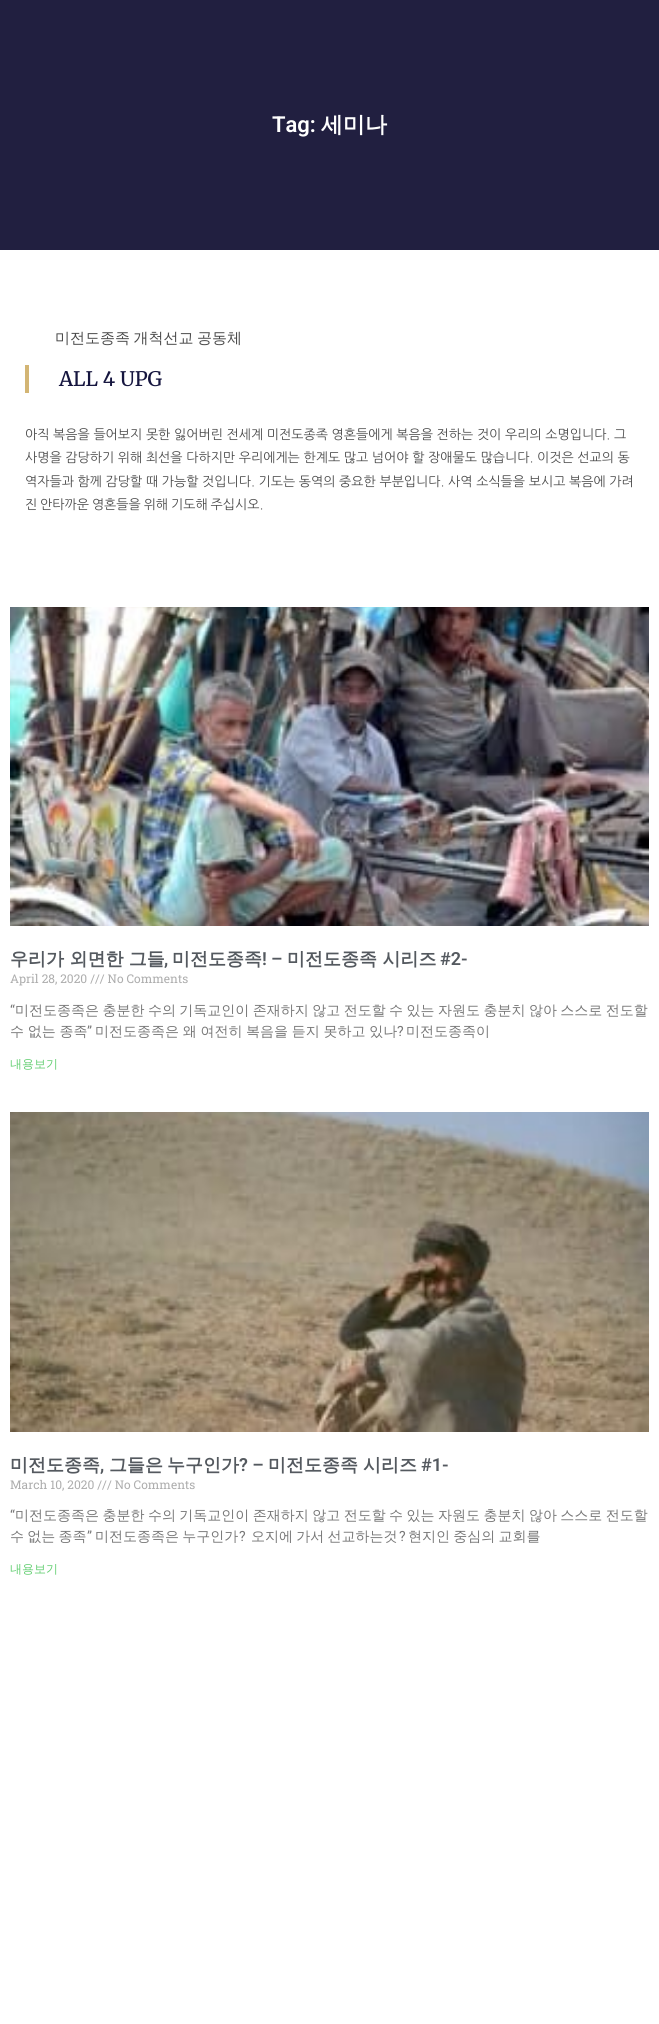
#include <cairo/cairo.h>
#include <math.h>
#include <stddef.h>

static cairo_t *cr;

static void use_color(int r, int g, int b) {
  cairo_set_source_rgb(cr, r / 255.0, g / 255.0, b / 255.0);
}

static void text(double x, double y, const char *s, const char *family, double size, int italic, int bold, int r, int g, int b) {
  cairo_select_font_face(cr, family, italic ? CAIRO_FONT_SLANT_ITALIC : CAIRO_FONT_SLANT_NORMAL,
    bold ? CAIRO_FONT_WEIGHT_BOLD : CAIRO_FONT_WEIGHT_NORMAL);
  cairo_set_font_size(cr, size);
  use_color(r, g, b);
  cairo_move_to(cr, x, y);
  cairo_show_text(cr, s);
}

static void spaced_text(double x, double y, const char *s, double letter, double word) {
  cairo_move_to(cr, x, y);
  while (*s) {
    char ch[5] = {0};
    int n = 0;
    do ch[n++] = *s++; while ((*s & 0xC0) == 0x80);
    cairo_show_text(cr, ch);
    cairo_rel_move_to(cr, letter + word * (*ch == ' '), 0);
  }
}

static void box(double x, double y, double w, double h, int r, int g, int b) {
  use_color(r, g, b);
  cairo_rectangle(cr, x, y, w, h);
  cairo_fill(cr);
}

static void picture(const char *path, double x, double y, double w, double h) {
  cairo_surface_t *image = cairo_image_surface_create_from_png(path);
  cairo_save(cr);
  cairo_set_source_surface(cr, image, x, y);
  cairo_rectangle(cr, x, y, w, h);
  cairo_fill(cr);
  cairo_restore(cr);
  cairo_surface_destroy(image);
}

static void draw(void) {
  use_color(255, 255, 255);
  cairo_paint(cr);
  box(0, 0, 659, 250, 33, 31, 64);
  box(25, 365, 4, 28, 211, 181, 116);
  picture("img_01.png", 10, 607, 639, 319);
  picture("img_02.png", 10, 1112, 639, 320);
  text(272, 132, "Tag:", "Roboto SemiBold", 22, 0, 0, 255, 255, 255);
  text(321, 132, "세미나", "WenQuanYi Zen Hei", 22, 0, 1, 255, 255, 255);
  cairo_select_font_face(cr, "WenQuanYi Zen Hei Medium", CAIRO_FONT_SLANT_NORMAL, CAIRO_FONT_WEIGHT_NORMAL);
  cairo_set_font_size(cr, 15);
  use_color(74, 74, 74);
  spaced_text(55, 343, "미전도종족 개척선교 공동체", 0, -1);
  text(59, 386, "ALL 4 UPG", "Merriweather Medium", 20, 0, 0, 22, 22, 63);
  text(25, 439, "아직 복음을 들어보지 못한 잃어버린 전세계 미전도종족 영혼들에게 복음을 전하는 것이 우리의 소명입니다. 그", "NanumGothic", 13, 0, 0, 74, 74, 74);
  text(25, 462, "사명을 감당하기 위해 최선을 다하지만 우리에게는 한계도 많고 넘어야 할 장애물도 많습니다. 이것은 선교의 동", "NanumGothic", 13, 0, 0, 74, 74, 74);
  text(25, 486, "역자들과 함께 감당할 때 가능할 것입니다. 기도는 동역의 중요한 부분입니다. 사역 소식들을 보시고 복음에 가려", "NanumGothic", 13, 0, 0, 74, 74, 74);
  spaced_text(25, 509, "진 안타까운 영혼들을 위해 기도해 주십시오.", 0, -0.75);
  text(10, 965, "우리가 외면한 그들", "WenQuanYi Zen Hei", 18, 0, 1, 84, 89, 95);
  text(172, 965, "미전도종족", "WenQuanYi Zen Hei", 18, 0, 1, 84, 89, 95);
  text(262, 965, "!", "Roboto SemiBold", 18, 0, 0, 84, 89, 95);
  text(271, 965, "–", "Roboto SemiBold", 18, 0, 0, 84, 89, 95);
  text(287, 965, "미전도종족 시리즈", "WenQuanYi Zen Hei", 18, 0, 1, 84, 89, 95);
  text(440, 965, "#2-", "Roboto SemiBold", 18, 0, 0, 84, 89, 95);
  text(164, 965, ",", "Roboto SemiBold", 18, 0, 0, 84, 89, 95);
  text(10, 983, "April 28, 2020 /// No Comments", "Roboto Slab", 12, 0, 0, 173, 173, 173);
  text(10, 1015, "“", "Roboto", 14, 0, 0, 119, 119, 119);
  cairo_select_font_face(cr, "WenQuanYi Zen Hei Medium", CAIRO_FONT_SLANT_NORMAL, CAIRO_FONT_WEIGHT_NORMAL);
  spaced_text(15, 1015, "미전도종족은 충분한 수의 기독교인이 존재하지 않고 전도할 수 있는 자원도 충분치 않아 스스로 전도할", 0, -0.75);
  spaced_text(10, 1036, "수 없는 종족", 0, -0.5);
  text(87, 1036, "”", "Roboto", 14, 0, 0, 119, 119, 119);
  cairo_select_font_face(cr, "WenQuanYi Zen Hei Medium", CAIRO_FONT_SLANT_NORMAL, CAIRO_FONT_WEIGHT_NORMAL);
  spaced_text(95, 1036, "미전도종족은 왜 여전히 복음을 듣지 못하고 있나", 0, -0.5);
  text(397, 1036, "?", "Roboto", 14, 0, 0, 119, 119, 119);
  text(406, 1036, "미전도종족이", "WenQuanYi Zen Hei Medium", 14, 0, 0, 119, 119, 119);
  text(10, 1068, "내용보기", "WenQuanYi Zen Hei Medium", 12, 0, 0, 97, 206, 112);
  text(10, 1471, "미전도종족", "WenQuanYi Zen Hei", 18, 0, 1, 84, 89, 95);
  text(100, 1471, ",", "Roboto SemiBold", 18, 0, 0, 84, 89, 95);
  text(109, 1471, "그들은", "WenQuanYi Zen Hei", 18, 0, 1, 84, 89, 95);
  text(167, 1471, "누구인가", "WenQuanYi Zen Hei", 18, 0, 1, 84, 89, 95);
  text(239, 1471, "? –", "Roboto SemiBold", 18, 0, 0, 84, 89, 95);
  text(268, 1471, "미전도종족", "WenQuanYi Zen Hei", 18, 0, 1, 84, 89, 95);
  text(363, 1471, "시리즈", "WenQuanYi Zen Hei", 18, 0, 1, 84, 89, 95);
  text(421, 1471, "#1-", "Roboto SemiBold", 18, 0, 0, 84, 89, 95);
  text(10, 1489, "March 10, 2020 /// No Comments", "Roboto Slab", 12, 0, 0, 173, 173, 173);
  text(10, 1520, "“", "Roboto", 14, 0, 0, 119, 119, 119);
  cairo_select_font_face(cr, "WenQuanYi Zen Hei Medium", CAIRO_FONT_SLANT_NORMAL, CAIRO_FONT_WEIGHT_NORMAL);
  spaced_text(15, 1520, "미전도종족은 충분한 수의 기독교인이 존재하지 않고 전도할 수 있는 자원도 충분치 않아 스스로 전도할", 0, -0.75);
  spaced_text(10, 1541, "수 없는 종족", 0, -1);
  text(87, 1541, "”", "Roboto", 14, 0, 0, 119, 119, 119);
  cairo_select_font_face(cr, "WenQuanYi Zen Hei Medium", CAIRO_FONT_SLANT_NORMAL, CAIRO_FONT_WEIGHT_NORMAL);
  spaced_text(95, 1541, "미전도종족은 누구인가", 0, -1);
  text(239, 1541, "?", "Roboto", 14, 0, 0, 119, 119, 119);
  cairo_select_font_face(cr, "WenQuanYi Zen Hei Medium", CAIRO_FONT_SLANT_NORMAL, CAIRO_FONT_WEIGHT_NORMAL);
  spaced_text(251, 1541, "오지에 가서 선교하는것", 0, -1);
  text(399, 1541, "?", "Roboto", 14, 0, 0, 119, 119, 119);
  cairo_select_font_face(cr, "WenQuanYi Zen Hei Medium", CAIRO_FONT_SLANT_NORMAL, CAIRO_FONT_WEIGHT_NORMAL);
  spaced_text(408, 1541, "현지인 중심의 교회를", 0, -1);
  text(10, 1573, "내용보기", "WenQuanYi Zen Hei Medium", 12, 0, 0, 97, 206, 112);
}

int main(void) {
  cairo_surface_t *surface = cairo_image_surface_create(CAIRO_FORMAT_RGB24, 659, 2024);
  cr = cairo_create(surface);
  cairo_font_options_t *options = cairo_font_options_create();
  cairo_font_options_set_hint_metrics(options, CAIRO_HINT_METRICS_OFF);
  cairo_font_options_set_hint_style(options, CAIRO_HINT_STYLE_NONE);
  cairo_set_font_options(cr, options);
  cairo_set_miter_limit(cr, 4);
  draw();
  cairo_surface_write_to_png(surface, "out.png");
  cairo_font_options_destroy(options);
  cairo_destroy(cr);
  cairo_surface_destroy(surface);
  return 0;
}
